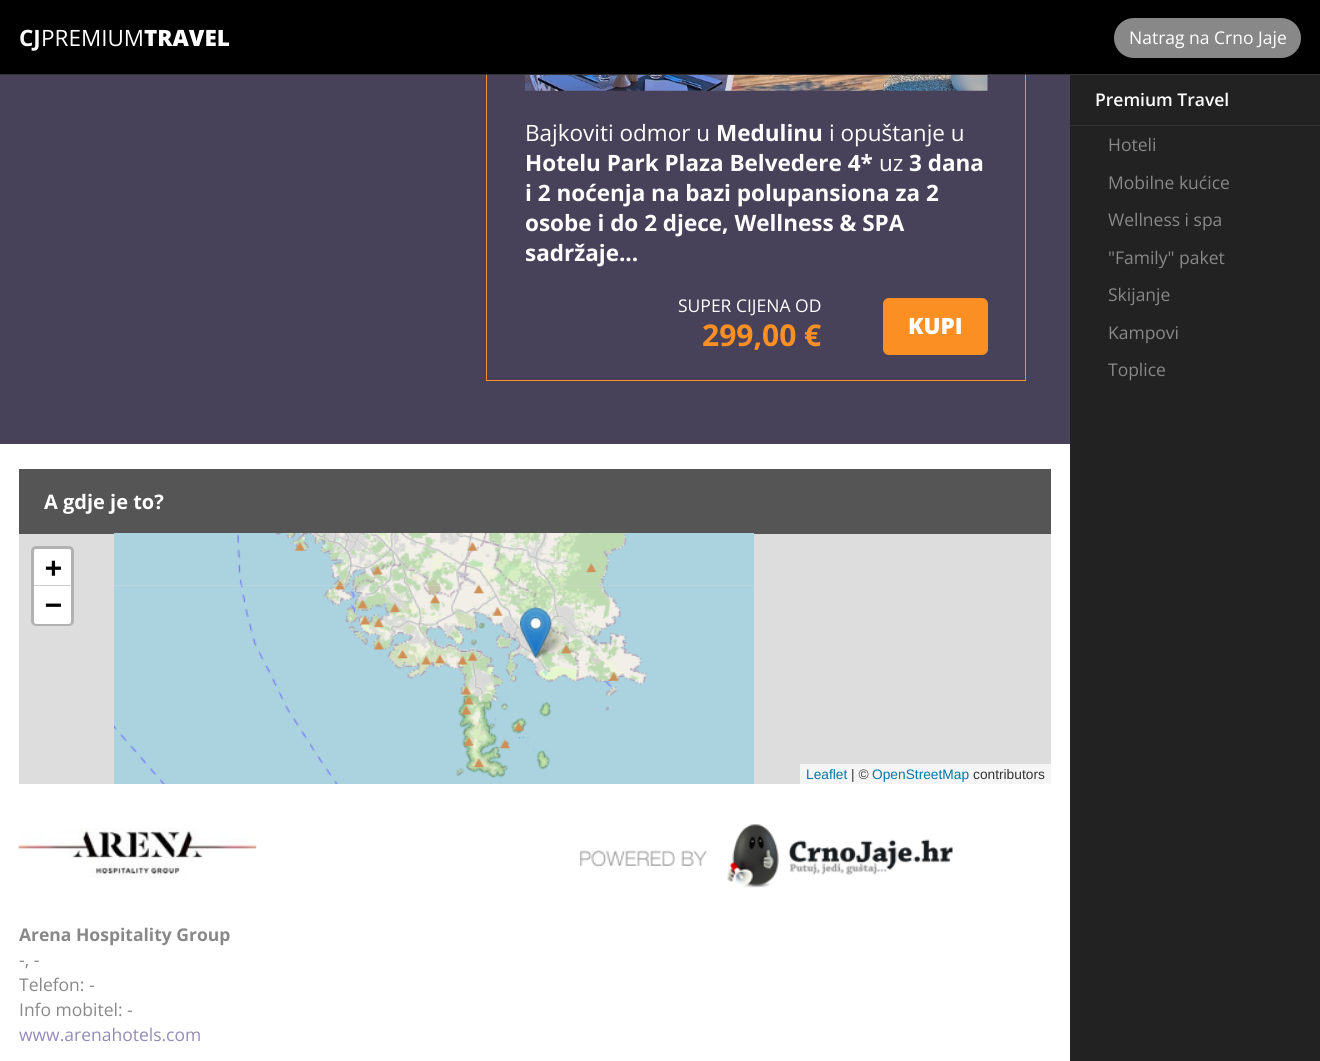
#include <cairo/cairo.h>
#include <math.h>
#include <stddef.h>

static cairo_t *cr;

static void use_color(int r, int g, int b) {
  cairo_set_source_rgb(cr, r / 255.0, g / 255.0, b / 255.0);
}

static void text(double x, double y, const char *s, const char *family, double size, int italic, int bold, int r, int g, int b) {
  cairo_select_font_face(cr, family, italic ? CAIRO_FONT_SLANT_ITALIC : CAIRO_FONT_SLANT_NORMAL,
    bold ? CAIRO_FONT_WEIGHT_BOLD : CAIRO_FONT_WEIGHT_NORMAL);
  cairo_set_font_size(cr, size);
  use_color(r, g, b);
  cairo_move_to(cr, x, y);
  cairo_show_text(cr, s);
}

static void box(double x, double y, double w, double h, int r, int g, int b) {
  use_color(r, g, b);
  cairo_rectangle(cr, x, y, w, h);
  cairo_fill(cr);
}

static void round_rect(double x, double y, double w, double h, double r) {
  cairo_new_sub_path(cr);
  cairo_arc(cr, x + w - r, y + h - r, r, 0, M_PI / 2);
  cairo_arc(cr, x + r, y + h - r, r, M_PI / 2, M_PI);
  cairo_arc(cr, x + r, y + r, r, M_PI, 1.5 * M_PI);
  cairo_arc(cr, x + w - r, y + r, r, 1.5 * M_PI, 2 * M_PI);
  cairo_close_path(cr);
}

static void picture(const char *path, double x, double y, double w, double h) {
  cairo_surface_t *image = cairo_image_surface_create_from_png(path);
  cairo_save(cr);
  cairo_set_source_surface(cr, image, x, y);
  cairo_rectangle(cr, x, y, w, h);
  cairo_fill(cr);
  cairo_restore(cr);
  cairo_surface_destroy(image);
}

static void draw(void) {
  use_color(71, 66, 89);
  cairo_paint(cr);
  cairo_rectangle(cr, 486.5, -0.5, 539, 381);
  use_color(252, 143, 36);
  cairo_set_line_width(cr, 1);
  cairo_stroke(cr);
  box(0, 0, 1320, 74, 0, 0, 0);
  box(0, 74, 1320, 1, 51, 51, 51);
  use_color(136, 136, 136);
  round_rect(1114, 18, 187, 40, 20);
  cairo_fill(cr);
  picture("img_01.png", 525, 75, 463, 16);
  use_color(252, 143, 36);
  round_rect(883, 298, 105, 57, 6);
  cairo_fill(cr);
  box(1070, 75, 250, 986, 34, 34, 34);
  box(1070, 125, 250, 1, 51, 51, 51);
  box(0, 444, 1070, 617, 255, 255, 255);
  box(19, 469, 1032, 65, 85, 85, 85);
  box(19, 534, 1032, 250, 221, 221, 221);
  picture("img_02.png", 114, 533, 320, 53);
  picture("img_03.png", 434, 533, 320, 53);
  picture("img_04.png", 114, 586, 320, 198);
  picture("img_05.png", 434, 586, 320, 198);
  picture("img_07.png", 531, 623, 38, 36);
  picture("img_06.png", 520, 607, 32, 52);
  round_rect(32.5, 547.5, 40, 77, 3.5);
  use_color(177, 177, 177);
  cairo_set_line_width(cr, 3);
  cairo_stroke(cr);
  use_color(255, 255, 255);
  cairo_new_path(cr);
  cairo_move_to(cr, 36.5, 549);
  cairo_line_to(cr, 68.5, 549);
  cairo_curve_to(cr, 70, 549, 71, 550, 71, 551.5);
  cairo_line_to(cr, 71, 586);
  cairo_line_to(cr, 34, 586);
  cairo_line_to(cr, 34, 551.5);
  cairo_curve_to(cr, 34, 550, 35, 549, 36.5, 549);
  cairo_close_path(cr);
  cairo_fill(cr);
  box(34, 585, 37, 1, 204, 204, 204);
  use_color(255, 255, 255);
  cairo_new_path(cr);
  cairo_move_to(cr, 34, 586);
  cairo_line_to(cr, 71, 586);
  cairo_line_to(cr, 71, 621.5);
  cairo_curve_to(cr, 71, 623, 70, 624, 68.5, 624);
  cairo_line_to(cr, 36.5, 624);
  cairo_curve_to(cr, 35, 624, 34, 623, 34, 621.5);
  cairo_close_path(cr);
  cairo_fill(cr);
  box(800, 764, 251, 20, 245, 245, 245);
  picture("img_08.png", 579, 824, 374, 64);
  picture("img_09.png", 18, 828, 239, 50);
  text(19, 46, "CJ", "Open Sans", 22.5, 0, 1, 255, 255, 255);
  text(41, 46, "PREMIUM", "Open Sans", 22.5, 0, 0, 255, 255, 255);
  text(144, 46, "TRAVEL", "Open Sans ExtraBold", 22.5, 0, 0, 255, 255, 255);
  text(1129, 44, "Natrag na Crno Jaje", "Open Sans", 17.5, 0, 0, 255, 255, 255);
  text(525, 141, "Bajkoviti odmor u", "Open Sans", 22.5, 0, 0, 255, 255, 255);
  text(716, 141, "Medulinu", "Open Sans", 22.5, 0, 1, 255, 255, 255);
  text(829, 141, "i opuštanje u", "Open Sans", 22.5, 0, 0, 255, 255, 255);
  text(525, 171, "Hotelu Park Plaza Belvedere 4*", "Open Sans", 22.5, 0, 1, 255, 255, 255);
  text(879, 171, "uz", "Open Sans", 22.5, 0, 0, 255, 255, 255);
  text(909, 171, "3 dana", "Open Sans", 22.5, 0, 1, 255, 255, 255);
  text(525, 201, "i 2 noćenja na bazi polupansiona za 2", "Open Sans", 22.5, 0, 1, 255, 255, 255);
  text(525, 231, "osobe i do 2 djece, Wellness & SPA", "Open Sans", 22.5, 0, 1, 255, 255, 255);
  text(525, 261, "sadržaje...", "Open Sans", 22.5, 0, 1, 255, 255, 255);
  text(678, 312, "SUPER CIJENA OD", "Open Sans", 17.5, 0, 0, 255, 255, 255);
  text(702, 346, "299,00 €", "Open Sans", 30, 0, 1, 252, 143, 36);
  text(908, 334, "KUPI", "Open Sans ExtraBold", 22.5, 0, 0, 255, 255, 255);
  text(1095, 106, "Premium Travel", "Open Sans SemiBold", 17.5, 0, 0, 255, 255, 255);
  text(1108, 151, "Hoteli", "Open Sans", 17.5, 0, 0, 136, 136, 136);
  text(1108, 189, "Mobilne kućice", "Open Sans", 17.5, 0, 0, 136, 136, 136);
  text(1108, 226, "Wellness i spa", "Open Sans", 17.5, 0, 0, 136, 136, 136);
  text(1108, 264, "\"Family\" paket", "Open Sans", 17.5, 0, 0, 136, 136, 136);
  text(1108, 301, "Skijanje", "Open Sans", 17.5, 0, 0, 136, 136, 136);
  text(1108, 339, "Kampovi", "Open Sans", 17.5, 0, 0, 136, 136, 136);
  text(1108, 376, "Toplice", "Open Sans", 17.5, 0, 0, 136, 136, 136);
  text(44, 509, "A gdje je to?", "Open Sans", 20, 0, 1, 255, 255, 255);
  text(45, 577, "+", "DejaVu Sans Mono", 28, 0, 1, 0, 0, 0);
  text(45, 614, "−", "DejaVu Sans Mono", 28, 0, 1, 0, 0, 0);
  text(806, 779, "Leaflet", "Liberation Sans", 13.75, 0, 0, 0, 120, 168);
  text(851, 779, "| ©", "Liberation Sans", 13.75, 0, 0, 51, 51, 51);
  text(872, 779, "OpenStreetMap", "Liberation Sans", 13.75, 0, 0, 0, 120, 168);
  text(973, 779, "contributors", "Liberation Sans", 13.75, 0, 0, 51, 51, 51);
  text(19, 941, "Arena Hospitality Group", "Open Sans", 17.5, 0, 1, 136, 136, 136);
  text(19, 966, "-, -", "Open Sans", 17.5, 0, 0, 136, 136, 136);
  text(19, 991, "Telefon: -", "Open Sans", 17.5, 0, 0, 136, 136, 136);
  text(19, 1016, "Info mobitel: -", "Open Sans", 17.5, 0, 0, 136, 136, 136);
  text(19, 1041, "www.arenahotels.com", "Open Sans", 17.5, 0, 0, 148, 139, 183);
}

int main(void) {
  cairo_surface_t *surface = cairo_image_surface_create(CAIRO_FORMAT_RGB24, 1320, 1061);
  cr = cairo_create(surface);
  cairo_font_options_t *options = cairo_font_options_create();
  cairo_font_options_set_hint_metrics(options, CAIRO_HINT_METRICS_OFF);
  cairo_font_options_set_hint_style(options, CAIRO_HINT_STYLE_NONE);
  cairo_set_font_options(cr, options);
  cairo_set_miter_limit(cr, 4);
  draw();
  cairo_surface_write_to_png(surface, "out.png");
  cairo_font_options_destroy(options);
  cairo_destroy(cr);
  cairo_surface_destroy(surface);
  return 0;
}
